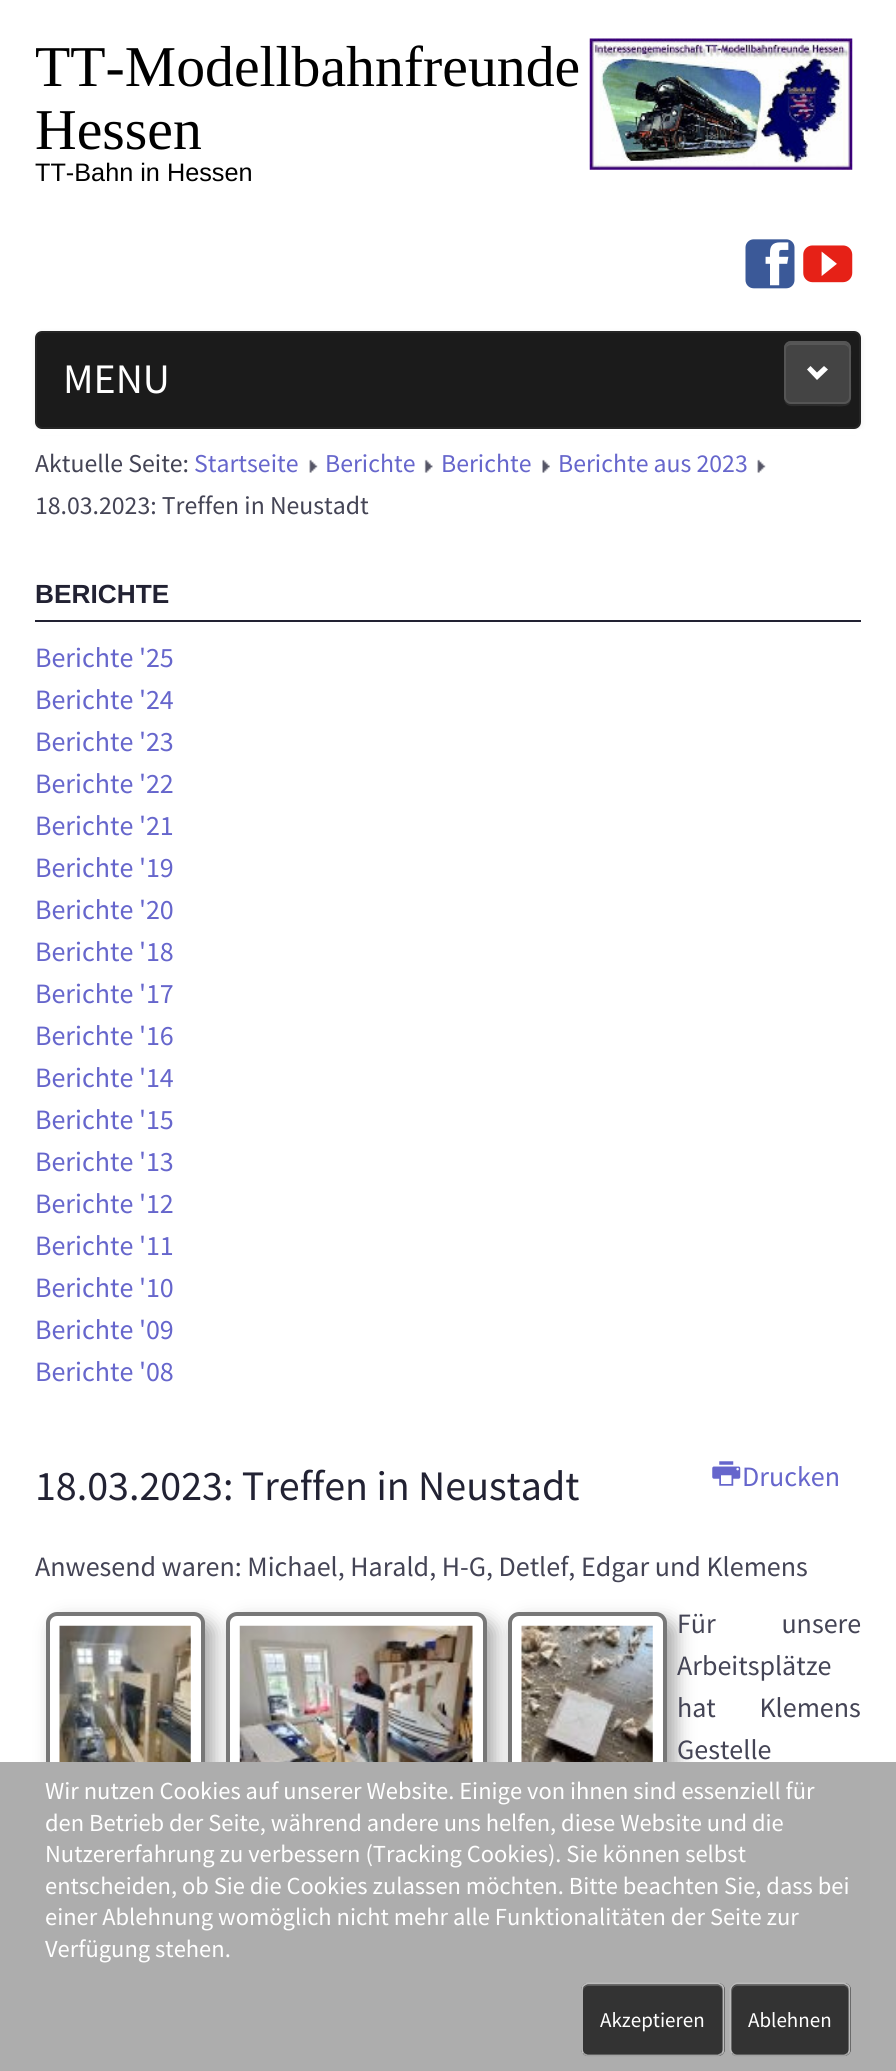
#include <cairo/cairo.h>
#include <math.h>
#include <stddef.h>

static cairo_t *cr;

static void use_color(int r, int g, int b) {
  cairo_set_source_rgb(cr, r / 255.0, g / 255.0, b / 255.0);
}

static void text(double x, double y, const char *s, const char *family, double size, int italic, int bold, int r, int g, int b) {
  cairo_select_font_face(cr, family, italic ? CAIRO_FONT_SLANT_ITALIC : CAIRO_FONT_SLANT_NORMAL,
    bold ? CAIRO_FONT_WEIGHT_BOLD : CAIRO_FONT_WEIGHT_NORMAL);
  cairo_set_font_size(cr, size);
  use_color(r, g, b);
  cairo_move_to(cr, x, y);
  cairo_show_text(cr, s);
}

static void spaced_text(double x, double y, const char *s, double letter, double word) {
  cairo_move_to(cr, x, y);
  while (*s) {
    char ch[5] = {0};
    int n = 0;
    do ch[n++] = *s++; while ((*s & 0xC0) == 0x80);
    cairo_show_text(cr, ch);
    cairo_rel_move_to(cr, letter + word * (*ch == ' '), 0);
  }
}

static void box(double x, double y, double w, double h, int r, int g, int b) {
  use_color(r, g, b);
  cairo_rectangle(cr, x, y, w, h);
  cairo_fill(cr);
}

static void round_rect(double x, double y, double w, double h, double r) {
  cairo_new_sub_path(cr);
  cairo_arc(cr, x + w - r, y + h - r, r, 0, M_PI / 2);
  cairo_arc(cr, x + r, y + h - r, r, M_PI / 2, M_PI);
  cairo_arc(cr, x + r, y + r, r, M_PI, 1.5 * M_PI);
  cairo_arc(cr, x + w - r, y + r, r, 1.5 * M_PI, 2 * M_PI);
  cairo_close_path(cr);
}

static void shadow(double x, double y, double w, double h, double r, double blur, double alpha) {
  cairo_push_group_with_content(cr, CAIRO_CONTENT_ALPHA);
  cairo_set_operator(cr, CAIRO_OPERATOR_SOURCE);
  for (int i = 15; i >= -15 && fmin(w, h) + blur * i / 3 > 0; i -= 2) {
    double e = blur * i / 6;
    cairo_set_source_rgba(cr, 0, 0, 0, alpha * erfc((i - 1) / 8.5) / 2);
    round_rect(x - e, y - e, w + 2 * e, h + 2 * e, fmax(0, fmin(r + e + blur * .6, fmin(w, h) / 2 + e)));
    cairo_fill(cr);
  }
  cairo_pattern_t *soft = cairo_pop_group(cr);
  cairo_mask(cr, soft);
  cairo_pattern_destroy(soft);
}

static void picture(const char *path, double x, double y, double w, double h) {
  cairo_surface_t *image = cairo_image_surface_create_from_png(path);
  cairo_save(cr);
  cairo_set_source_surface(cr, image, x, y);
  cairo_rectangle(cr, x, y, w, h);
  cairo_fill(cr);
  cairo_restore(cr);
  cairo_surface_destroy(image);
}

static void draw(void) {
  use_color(255, 255, 255);
  cairo_paint(cr);
  picture("img_01.png", 589, 38, 264, 132);
  picture("img_02.png", 745, 239, 50, 50);
  picture("img_03.png", 803, 245, 50, 38);
  use_color(0, 0, 0);
  shadow(35, 333, 826, 98, 7, 3.5, 0.07);
  use_color(27, 27, 27);
  round_rect(36, 332, 824, 96, 6);
  cairo_fill_preserve(cr);
  use_color(37, 37, 37);
  cairo_stroke(cr);
  use_color(44, 44, 44);
  cairo_new_path(cr);
  cairo_move_to(cr, 784, 397);
  cairo_curve_to(cr, 784, 408, 792, 406, 800, 406);
  cairo_line_to(cr, 818, 406);
  cairo_curve_to(cr, 856, 406, 851, 412, 851, 374);
  cairo_line_to(cr, 851, 358);
  cairo_curve_to(cr, 851, 356, 852, 350, 850, 347);
  cairo_line_to(cr, 850, 381);
  cairo_curve_to(cr, 850, 407, 853, 404, 826, 404);
  cairo_line_to(cr, 790, 404);
  cairo_curve_to(cr, 786, 403, 784, 401, 784, 397);
  cairo_close_path(cr);
  cairo_fill(cr);
  use_color(68, 68, 68);
  round_rect(784, 341, 67, 63, 7);
  cairo_fill(cr);
  use_color(87, 87, 87);
  cairo_new_path(cr);
  cairo_move_to(cr, 791, 345);
  cairo_line_to(cr, 844, 345);
  cairo_curve_to(cr, 846, 345, 849, 347, 849, 350);
  cairo_curve_to(cr, 849, 341, 843, 343, 835, 343);
  cairo_line_to(cr, 800, 343);
  cairo_curve_to(cr, 792, 343, 786, 341, 786, 350);
  cairo_curve_to(cr, 786, 347, 788, 345, 791, 345);
  cairo_close_path(cr);
  cairo_fill(cr);
  round_rect(785, 342, 65, 61, 6);
  use_color(85, 85, 85);
  cairo_stroke(cr);
  use_color(255, 255, 255);
  cairo_new_path(cr);
  cairo_move_to(cr, 828, 369.5);
  cairo_line_to(cr, 817, 380);
  cairo_line_to(cr, 807, 369.5);
  cairo_line_to(cr, 810.5, 366);
  cairo_line_to(cr, 817, 372.5);
  cairo_line_to(cr, 824, 366);
  cairo_close_path(cr);
  cairo_fill(cr);
  box(34, 429, 828, 6, 255, 255, 255);
  picture("img_04.png", 309, 459, 9, 14);
  picture("img_05.png", 424, 459, 9, 14);
  picture("img_06.png", 542, 459, 8, 14);
  picture("img_07.png", 757, 459, 9, 14);
  box(35, 620, 826, 2, 34, 34, 51);
  picture("img_08.png", 712, 1461, 29, 25);
  use_color(170, 170, 170);
  shadow(54, 1621, 160, 203, 11, 9, 1);
  use_color(255, 255, 255);
  round_rect(48, 1614, 155, 199, 9);
  cairo_fill_preserve(cr);
  use_color(119, 119, 119);
  cairo_set_line_width(cr, 4);
  cairo_stroke(cr);
  picture("img_09.png", 59, 1625, 132, 137);
  use_color(170, 170, 170);
  shadow(235, 1621, 260, 203, 11, 9, 1);
  use_color(255, 255, 255);
  round_rect(228, 1614, 257, 199, 9);
  cairo_fill_preserve(cr);
  use_color(119, 119, 119);
  cairo_stroke(cr);
  picture("img_10.png", 239, 1625, 234, 137);
  use_color(170, 170, 170);
  shadow(516, 1621, 160, 203, 11, 9, 1);
  use_color(255, 255, 255);
  round_rect(510, 1614, 155, 199, 9);
  cairo_fill_preserve(cr);
  use_color(119, 119, 119);
  cairo_stroke(cr);
  picture("img_11.png", 521, 1625, 132, 137);
  box(0, 1762, 896, 309, 173, 173, 173);
  use_color(51, 51, 51);
  round_rect(581, 1983, 144, 73, 7);
  cairo_fill(cr);
  use_color(92, 92, 92);
  cairo_new_path(cr);
  cairo_move_to(cr, 588, 1986);
  cairo_line_to(cr, 718, 1986);
  cairo_curve_to(cr, 720, 1986, 723, 1989, 723, 1992);
  cairo_line_to(cr, 723, 1990);
  cairo_curve_to(cr, 723, 1987, 721, 1985, 718, 1985);
  cairo_line_to(cr, 588, 1985);
  cairo_curve_to(cr, 585, 1985, 583, 1987, 583, 1990);
  cairo_line_to(cr, 583, 1992);
  cairo_curve_to(cr, 583, 1989, 585, 1986, 588, 1986);
  cairo_close_path(cr);
  cairo_fill(cr);
  cairo_new_path(cr);
  cairo_move_to(cr, 722, 2053.5);
  cairo_line_to(cr, 718, 2055.5);
  cairo_line_to(cr, 587.5, 2055.5);
  cairo_curve_to(cr, 586, 2055, 584.5, 2054.5, 583.5, 2053.5);
  use_color(162, 162, 162);
  cairo_set_line_width(cr, 1.8);
  cairo_stroke(cr);
  cairo_new_path(cr);
  cairo_move_to(cr, 583.5, 2053.5);
  cairo_curve_to(cr, 582.5, 2052.5, 582, 2051, 582, 2049);
  cairo_line_to(cr, 582, 1990);
  cairo_curve_to(cr, 582, 1988, 582.5, 1986.5, 583.5, 1985.5);
  cairo_curve_to(cr, 585, 1984.5, 586.5, 1983.5, 588, 1983.5);
  cairo_line_to(cr, 717.5, 1983.5);
  cairo_curve_to(cr, 719, 1983.5, 720.5, 1984.5, 722, 1985.5);
  cairo_curve_to(cr, 723, 1986.5, 723.5, 1988, 723.5, 1990);
  cairo_line_to(cr, 723.5, 2049);
  cairo_curve_to(cr, 723.5, 2051, 723, 2052.5, 722, 2053.5);
  use_color(187, 187, 187);
  cairo_stroke(cr);
  use_color(51, 51, 51);
  round_rect(730, 1983, 121, 73, 7);
  cairo_fill(cr);
  use_color(92, 92, 92);
  cairo_new_path(cr);
  cairo_move_to(cr, 737, 1986);
  cairo_line_to(cr, 844, 1986);
  cairo_curve_to(cr, 846, 1986, 849, 1989, 849, 1992);
  cairo_line_to(cr, 849, 1990);
  cairo_curve_to(cr, 849, 1987, 847, 1985, 844, 1985);
  cairo_line_to(cr, 737, 1985);
  cairo_curve_to(cr, 734, 1985, 732, 1987, 732, 1990);
  cairo_line_to(cr, 732, 1992);
  cairo_curve_to(cr, 732, 1989, 734, 1986, 737, 1986);
  cairo_close_path(cr);
  cairo_fill(cr);
  cairo_new_path(cr);
  cairo_move_to(cr, 848, 2053.5);
  cairo_curve_to(cr, 846.5, 2054.5, 845, 2055.5, 843.5, 2055.5);
  cairo_line_to(cr, 737, 2055.5);
  cairo_curve_to(cr, 735, 2055.5, 733.5, 2054.5, 732.5, 2053.5);
  use_color(162, 162, 162);
  cairo_stroke(cr);
  cairo_new_path(cr);
  cairo_move_to(cr, 732.5, 2053.5);
  cairo_curve_to(cr, 731.5, 2052.5, 730.5, 2051, 730.5, 2049);
  cairo_line_to(cr, 730.5, 1990);
  cairo_curve_to(cr, 730.5, 1988, 731.5, 1986.5, 732.5, 1985.5);
  cairo_curve_to(cr, 733.5, 1984.5, 735, 1983.5, 737, 1983.5);
  cairo_line_to(cr, 843.5, 1983.5);
  cairo_curve_to(cr, 845, 1983.5, 846.5, 1984.5, 848, 1985.5);
  cairo_curve_to(cr, 849, 1986.5, 849.5, 1988, 849.5, 1990);
  cairo_line_to(cr, 849.5, 2049);
  cairo_curve_to(cr, 849.5, 2051, 849, 2052.5, 848, 2053.5);
  use_color(187, 187, 187);
  cairo_stroke(cr);
  text(35, 86, "TT-Modellbahnfreunde", "Liberation Serif", 57.75, 0, 0, 0, 0, 0);
  text(35, 149, "Hessen", "Liberation Serif", 57.75, 0, 0, 0, 0, 0);
  text(35, 181, "TT-Bahn in Hessen", "Liberation Sans", 25.25, 0, 0, 0, 0, 0);
  text(63, 393, "MENU", "Source Sans Pro", 42, 0, 0, 255, 255, 255);
  text(35, 472, "Aktuelle Seite:", "Source Sans Pro", 25.75, 0, 0, 68, 68, 85);
  text(194, 472, "Startseite", "Source Sans Pro", 25.75, 0, 0, 102, 102, 204);
  text(325, 472, "Berichte", "Source Sans Pro", 25.75, 0, 0, 102, 102, 204);
  text(441, 472, "Berichte", "Source Sans Pro", 25.75, 0, 0, 102, 102, 204);
  text(558, 472, "Berichte aus 2023", "Source Sans Pro", 25.75, 0, 0, 102, 102, 204);
  text(35, 514, "18.03.2023: Treffen in Neustadt", "Source Sans Pro", 25.75, 0, 0, 68, 68, 85);
  text(35, 603, "BERICHTE", "Liberation Sans", 26.25, 0, 1, 34, 34, 51);
  text(35, 667, "Berichte '25", "Source Sans Pro", 28, 0, 0, 102, 102, 204);
  text(35, 709, "Berichte '24", "Source Sans Pro", 28, 0, 0, 102, 102, 204);
  text(35, 751, "Berichte '23", "Source Sans Pro", 28, 0, 0, 102, 102, 204);
  text(35, 793, "Berichte '22", "Source Sans Pro", 28, 0, 0, 102, 102, 204);
  text(35, 835, "Berichte '21", "Source Sans Pro", 28, 0, 0, 102, 102, 204);
  text(35, 877, "Berichte '19", "Source Sans Pro", 28, 0, 0, 102, 102, 204);
  text(35, 919, "Berichte '20", "Source Sans Pro", 28, 0, 0, 102, 102, 204);
  text(35, 961, "Berichte '18", "Source Sans Pro", 28, 0, 0, 102, 102, 204);
  text(35, 1003, "Berichte '17", "Source Sans Pro", 28, 0, 0, 102, 102, 204);
  text(35, 1045, "Berichte '16", "Source Sans Pro", 28, 0, 0, 102, 102, 204);
  text(35, 1087, "Berichte '14", "Source Sans Pro", 28, 0, 0, 102, 102, 204);
  text(35, 1129, "Berichte '15", "Source Sans Pro", 28, 0, 0, 102, 102, 204);
  text(35, 1171, "Berichte '13", "Source Sans Pro", 28, 0, 0, 102, 102, 204);
  text(35, 1213, "Berichte '12", "Source Sans Pro", 28, 0, 0, 102, 102, 204);
  text(35, 1255, "Berichte '11", "Source Sans Pro", 28, 0, 0, 102, 102, 204);
  text(35, 1297, "Berichte '10", "Source Sans Pro", 28, 0, 0, 102, 102, 204);
  text(35, 1339, "Berichte '09", "Source Sans Pro", 28, 0, 0, 102, 102, 204);
  text(35, 1381, "Berichte '08", "Source Sans Pro", 28, 0, 0, 102, 102, 204);
  text(35, 1500, "18.03.2023: Treffen in Neustadt", "Source Sans Pro", 42, 0, 0, 34, 34, 51);
  text(742, 1486, "Drucken", "Source Sans Pro", 28, 0, 0, 102, 102, 204);
  text(35, 1576, "Anwesend waren: Michael, Harald, H-G, Detlef, Edgar und Klemens", "Source Sans Pro", 28, 0, 0, 68, 68, 85);
  spaced_text(677, 1633, "Für unsere", 0, 60);
  text(677, 1675, "Arbeitsplätze", "Source Sans Pro", 28, 0, 0, 68, 68, 85);
  spaced_text(677, 1717, "hat Klemens", 0, 38);
  text(677, 1759, "Gestelle", "Source Sans Pro", 28, 0, 0, 68, 68, 85);
  text(45, 1799, "Wir nutzen Cookies auf unserer Website. Einige von ihnen sind essenziell für", "Source Sans Pro", 24.5, 0, 0, 255, 255, 255);
  text(45, 1831, "den Betrieb der Seite, während andere uns helfen, diese Website und die", "Source Sans Pro", 24.5, 0, 0, 255, 255, 255);
  text(45, 1862, "Nutzererfahrung zu verbessern (Tracking Cookies). Sie können selbst", "Source Sans Pro", 24.5, 0, 0, 255, 255, 255);
  text(45, 1894, "entscheiden, ob Sie die Cookies zulassen möchten. Bitte beachten Sie, dass bei", "Source Sans Pro", 24.5, 0, 0, 255, 255, 255);
  text(45, 1925, "einer Ablehnung womöglich nicht mehr alle Funktionalitäten der Seite zur", "Source Sans Pro", 24.5, 0, 0, 255, 255, 255);
  text(45, 1957, "Verfügung stehen.", "Source Sans Pro", 24.5, 0, 0, 255, 255, 255);
  text(600, 2027, "Akzeptieren", "Source Sans Pro", 21, 0, 0, 255, 255, 255);
  text(748, 2027, "Ablehnen", "Source Sans Pro", 21, 0, 0, 255, 255, 255);
}

int main(void) {
  cairo_surface_t *surface = cairo_image_surface_create(CAIRO_FORMAT_RGB24, 896, 2071);
  cr = cairo_create(surface);
  cairo_font_options_t *options = cairo_font_options_create();
  cairo_font_options_set_hint_metrics(options, CAIRO_HINT_METRICS_OFF);
  cairo_font_options_set_hint_style(options, CAIRO_HINT_STYLE_NONE);
  cairo_set_font_options(cr, options);
  cairo_set_miter_limit(cr, 4);
  draw();
  cairo_surface_write_to_png(surface, "out.png");
  cairo_font_options_destroy(options);
  cairo_destroy(cr);
  cairo_surface_destroy(surface);
  return 0;
}
